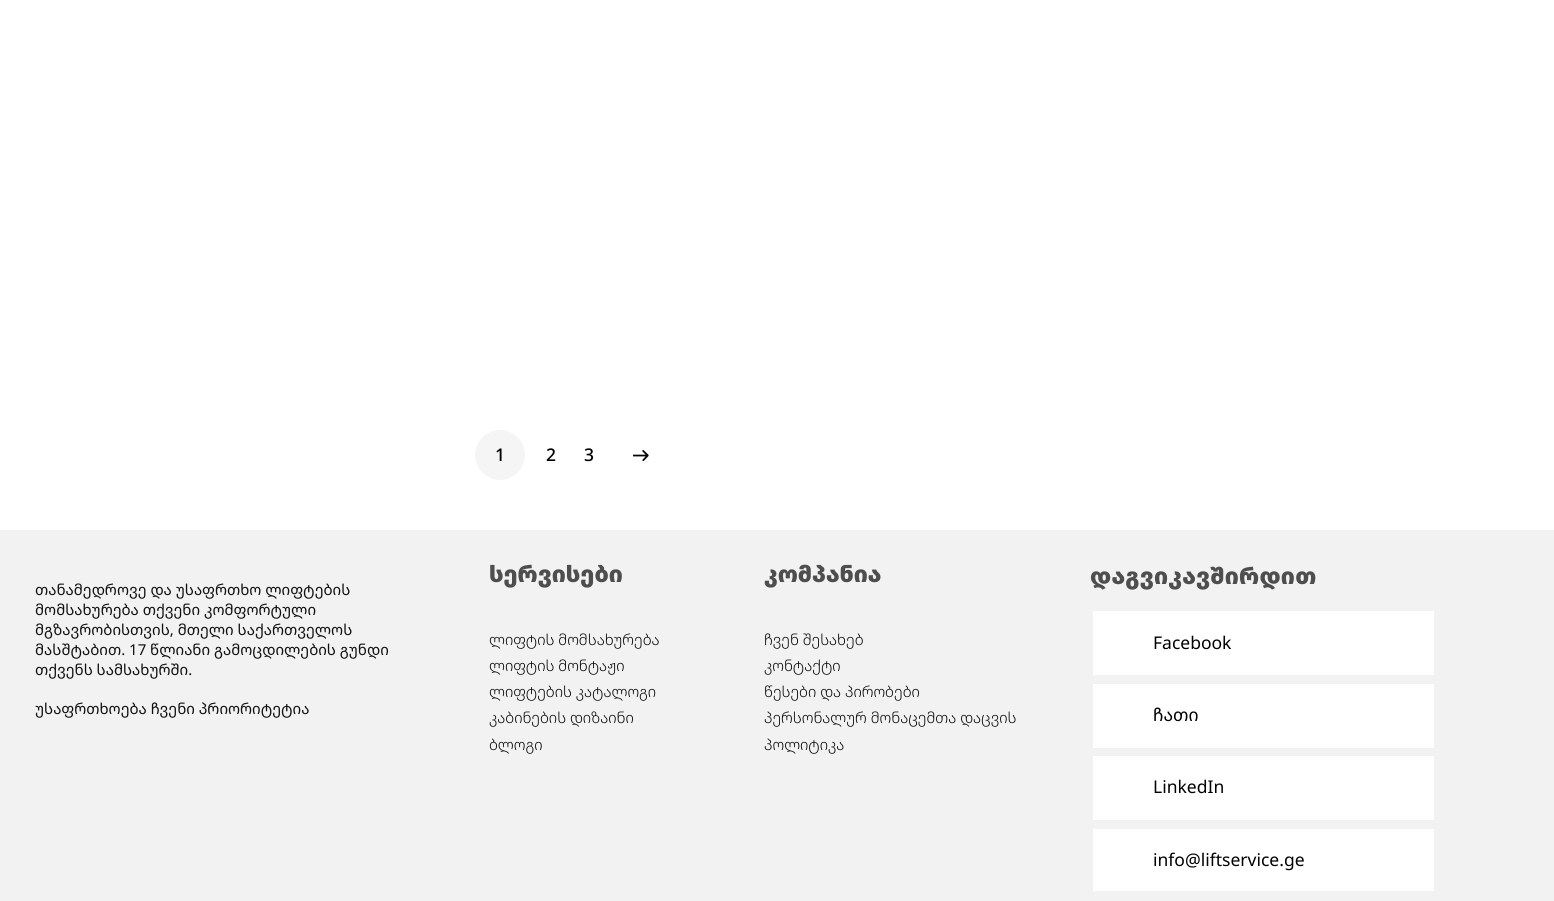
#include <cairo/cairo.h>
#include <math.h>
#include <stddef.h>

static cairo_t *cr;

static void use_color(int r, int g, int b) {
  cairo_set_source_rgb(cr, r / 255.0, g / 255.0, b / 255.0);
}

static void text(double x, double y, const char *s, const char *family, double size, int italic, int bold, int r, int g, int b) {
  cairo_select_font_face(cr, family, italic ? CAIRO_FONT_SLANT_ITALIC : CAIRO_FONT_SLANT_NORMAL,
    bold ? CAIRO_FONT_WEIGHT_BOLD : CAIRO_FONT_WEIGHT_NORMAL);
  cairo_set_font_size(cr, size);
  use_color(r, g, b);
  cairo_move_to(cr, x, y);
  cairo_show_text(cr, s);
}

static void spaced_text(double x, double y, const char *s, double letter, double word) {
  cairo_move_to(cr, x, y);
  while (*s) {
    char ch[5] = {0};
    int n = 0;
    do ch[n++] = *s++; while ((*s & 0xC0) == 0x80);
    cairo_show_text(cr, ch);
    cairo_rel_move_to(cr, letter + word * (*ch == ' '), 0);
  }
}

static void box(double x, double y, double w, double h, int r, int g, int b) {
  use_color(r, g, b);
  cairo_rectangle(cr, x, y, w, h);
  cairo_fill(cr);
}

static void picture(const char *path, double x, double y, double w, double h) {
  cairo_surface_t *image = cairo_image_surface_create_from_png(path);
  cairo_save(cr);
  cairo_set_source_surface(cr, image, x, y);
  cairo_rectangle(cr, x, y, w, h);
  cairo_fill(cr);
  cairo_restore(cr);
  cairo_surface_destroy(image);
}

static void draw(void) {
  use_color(255, 255, 255);
  cairo_paint(cr);
  use_color(245, 245, 245);
  cairo_arc(cr, 500, 455, 25, 0, 2 * M_PI);
  cairo_fill(cr);
  picture("img_01.png", 633, 450, 16, 11);
  box(0, 530, 1554, 371, 242, 242, 242);
  box(1093, 611, 341, 64, 255, 255, 255);
  box(1093, 684, 341, 64, 255, 255, 255);
  box(1093, 756, 341, 64, 255, 255, 255);
  box(1093, 829, 341, 62, 255, 255, 255);
  text(495, 461, "1", "Noto Sans Georgian Medium", 17.5, 0, 0, 0, 0, 0);
  text(546, 461, "2", "Noto Sans Georgian Medium", 17.5, 0, 0, 0, 0, 0);
  text(584, 461, "3", "Noto Sans Georgian Medium", 17.5, 0, 0, 0, 0, 0);
  text(35, 595, "თანამედროვე და უსაფრთხო ლიფტების", "Noto Sans Georgian", 15, 0, 0, 17, 17, 17);
  text(35, 615, "მომსახურება თქვენი კომფორტული", "Noto Sans Georgian", 15, 0, 0, 17, 17, 17);
  text(35, 635, "მგზავრობისთვის, მთელი საქართველოს", "Noto Sans Georgian", 15, 0, 0, 17, 17, 17);
  text(35, 655, "მასშტაბით. 17 წლიანი გამოცდილების გუნდი", "Noto Sans Georgian", 15, 0, 0, 17, 17, 17);
  text(35, 675, "თქვენს სამსახურში.", "Noto Sans Georgian", 15, 0, 0, 17, 17, 17);
  text(35, 714, "უსაფრთხოება ჩვენი პრიორიტეტია", "Noto Sans Georgian", 15, 0, 0, 17, 17, 17);
  text(489, 582, "სერვისები", "Noto Sans Georgian Black", 22.5, 0, 0, 79, 78, 78);
  text(489, 645, "ლიფტის მომსახურება", "Noto Sans Georgian Light", 15, 0, 0, 0, 0, 0);
  text(489, 671, "ლიფტის მონტაჟი", "Noto Sans Georgian Light", 15, 0, 0, 0, 0, 0);
  text(489, 697, "ლიფტების კატალოგი", "Noto Sans Georgian Light", 15, 0, 0, 0, 0, 0);
  text(489, 723, "კაბინების დიზაინი", "Noto Sans Georgian Light", 15, 0, 0, 0, 0, 0);
  text(489, 750, "ბლოგი", "Noto Sans Georgian Light", 15, 0, 0, 0, 0, 0);
  text(764, 582, "კომპანია", "Noto Sans Georgian Black", 22.5, 0, 0, 79, 78, 78);
  text(764, 645, "ჩვენ შესახებ", "Noto Sans Georgian Light", 15, 0, 0, 0, 0, 0);
  text(764, 671, "კონტაქტი", "Noto Sans Georgian Light", 15, 0, 0, 0, 0, 0);
  text(764, 697, "წესები და პირობები", "Noto Sans Georgian Light", 15, 0, 0, 0, 0, 0);
  text(764, 723, "პერსონალურ მონაცემთა დაცვის", "Noto Sans Georgian Light", 15, 0, 0, 0, 0, 0);
  text(764, 750, "პოლიტიკა", "Noto Sans Georgian Light", 15, 0, 0, 0, 0, 0);
  cairo_select_font_face(cr, "Noto Sans Georgian Black", CAIRO_FONT_SLANT_NORMAL, CAIRO_FONT_WEIGHT_NORMAL);
  cairo_set_font_size(cr, 22.5);
  use_color(79, 78, 78);
  spaced_text(1090, 584, "დაგვიკავშირდით", 0.25, 0);
  text(1153, 649, "Facebook", "Noto Sans Georgian", 17.5, 0, 0, 0, 0, 0);
  text(1153, 721, "ჩათი", "Noto Sans Georgian", 17.5, 0, 0, 0, 0, 0);
  text(1153, 793, "LinkedIn", "Noto Sans Georgian", 17.5, 0, 0, 0, 0, 0);
  text(1153, 866, "info@liftservice.ge", "Noto Sans Georgian", 17.5, 0, 0, 0, 0, 0);
}

int main(void) {
  cairo_surface_t *surface = cairo_image_surface_create(CAIRO_FORMAT_RGB24, 1554, 901);
  cr = cairo_create(surface);
  cairo_font_options_t *options = cairo_font_options_create();
  cairo_font_options_set_hint_metrics(options, CAIRO_HINT_METRICS_OFF);
  cairo_font_options_set_hint_style(options, CAIRO_HINT_STYLE_NONE);
  cairo_set_font_options(cr, options);
  cairo_set_miter_limit(cr, 4);
  draw();
  cairo_surface_write_to_png(surface, "out.png");
  cairo_font_options_destroy(options);
  cairo_destroy(cr);
  cairo_surface_destroy(surface);
  return 0;
}
